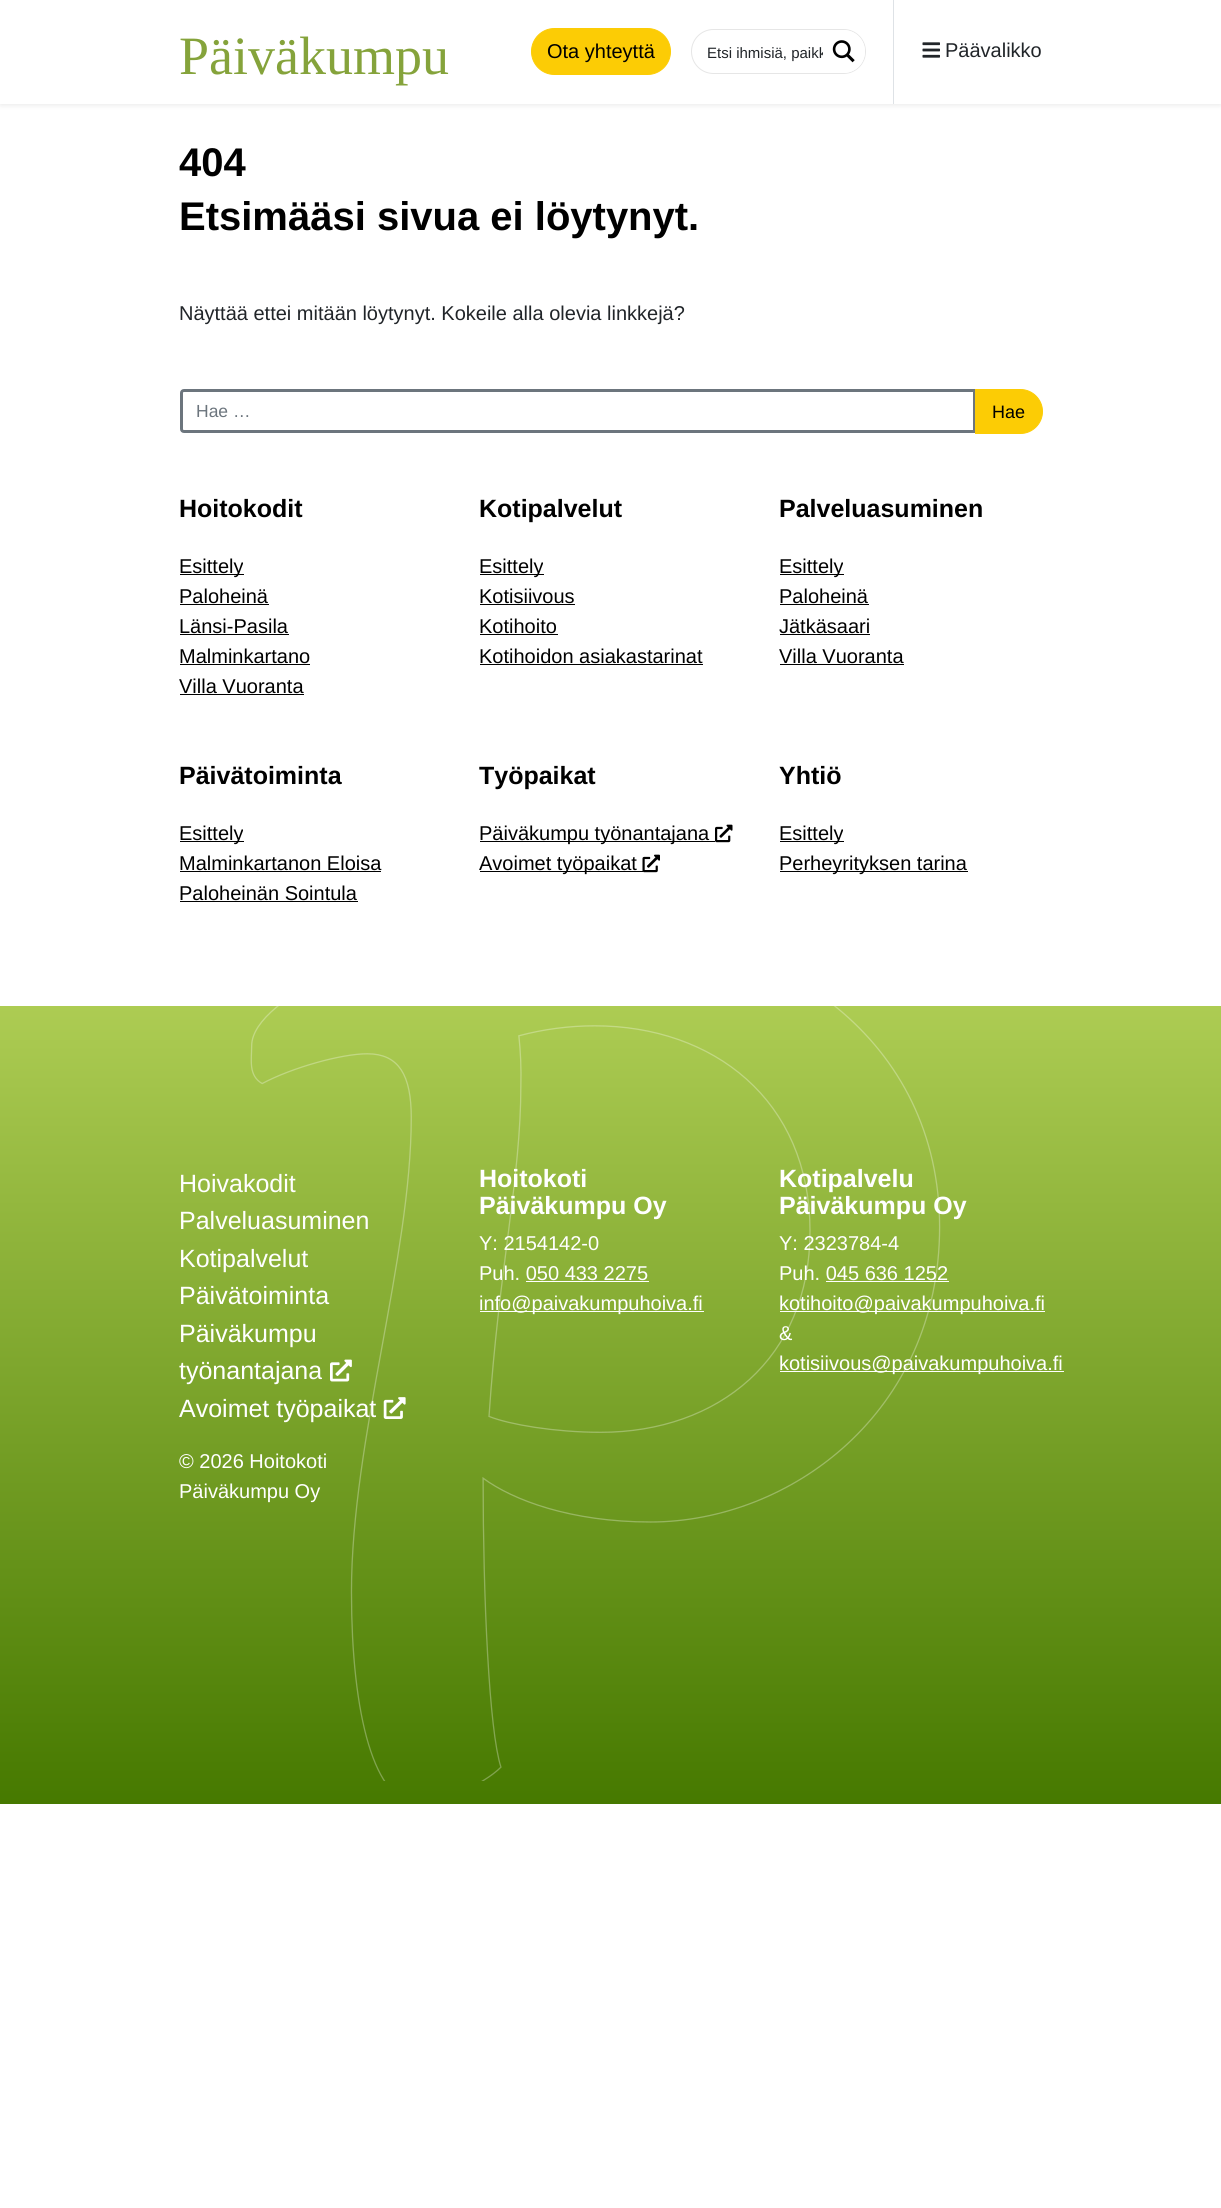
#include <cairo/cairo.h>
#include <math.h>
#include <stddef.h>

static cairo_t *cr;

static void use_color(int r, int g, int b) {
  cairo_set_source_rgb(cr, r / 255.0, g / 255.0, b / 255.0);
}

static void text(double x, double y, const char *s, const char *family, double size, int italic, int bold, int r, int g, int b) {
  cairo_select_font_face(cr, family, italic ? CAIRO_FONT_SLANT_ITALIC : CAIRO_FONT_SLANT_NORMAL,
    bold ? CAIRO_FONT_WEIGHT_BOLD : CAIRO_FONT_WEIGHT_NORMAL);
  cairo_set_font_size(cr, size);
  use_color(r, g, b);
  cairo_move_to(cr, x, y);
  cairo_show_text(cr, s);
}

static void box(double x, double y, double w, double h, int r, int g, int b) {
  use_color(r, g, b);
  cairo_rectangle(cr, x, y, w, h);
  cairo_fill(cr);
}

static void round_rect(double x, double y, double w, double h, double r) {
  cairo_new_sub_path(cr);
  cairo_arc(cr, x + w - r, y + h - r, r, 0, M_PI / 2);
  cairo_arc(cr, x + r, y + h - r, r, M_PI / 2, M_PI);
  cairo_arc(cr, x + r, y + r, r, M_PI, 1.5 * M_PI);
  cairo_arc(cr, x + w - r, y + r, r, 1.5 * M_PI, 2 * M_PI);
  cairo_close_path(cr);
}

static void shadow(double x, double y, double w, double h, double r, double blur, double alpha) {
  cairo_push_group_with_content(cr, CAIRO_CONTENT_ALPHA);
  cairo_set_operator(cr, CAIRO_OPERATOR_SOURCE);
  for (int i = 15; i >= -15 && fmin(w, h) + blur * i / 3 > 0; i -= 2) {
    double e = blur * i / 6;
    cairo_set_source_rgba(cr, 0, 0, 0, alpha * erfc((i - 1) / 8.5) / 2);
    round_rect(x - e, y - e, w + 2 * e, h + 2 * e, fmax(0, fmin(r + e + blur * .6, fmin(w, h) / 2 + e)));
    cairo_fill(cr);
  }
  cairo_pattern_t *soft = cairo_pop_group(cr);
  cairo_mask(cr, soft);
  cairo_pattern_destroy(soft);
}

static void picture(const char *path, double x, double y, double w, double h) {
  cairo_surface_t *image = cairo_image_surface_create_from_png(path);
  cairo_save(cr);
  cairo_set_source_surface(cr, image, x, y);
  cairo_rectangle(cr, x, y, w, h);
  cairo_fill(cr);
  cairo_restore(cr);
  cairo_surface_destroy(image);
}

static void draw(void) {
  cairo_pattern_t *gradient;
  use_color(255, 255, 255);
  cairo_paint(cr);
  use_color(0, 0, 0);
  shadow(0, 3, 1221, 103, 0, 2.5, 0.07);
  box(0, 0, 1221, 104, 255, 255, 255);
  use_color(252, 204, 5);
  round_rect(531.5, 28.5, 139, 46, 23);
  cairo_fill_preserve(cr);
  cairo_set_line_width(cr, 1);
  cairo_stroke(cr);
  round_rect(691.5, 29.5, 174, 44, 22);
  use_color(230, 230, 230);
  cairo_stroke(cr);
  box(893, 0, 1, 104, 222, 226, 230);
  picture("img_02.png", 922, 42, 18, 16);
  cairo_new_path(cr);
  cairo_move_to(cr, 184, 390.5);
  cairo_line_to(cr, 974.5, 390.5);
  cairo_line_to(cr, 974.5, 431.5);
  cairo_line_to(cr, 184, 431.5);
  cairo_curve_to(cr, 182.5, 431.5, 181.5, 430.5, 181.5, 429);
  cairo_line_to(cr, 181.5, 393);
  cairo_curve_to(cr, 181.5, 391.5, 182.5, 390.5, 184, 390.5);
  cairo_close_path(cr);
  use_color(108, 117, 125);
  cairo_set_line_width(cr, 3);
  cairo_stroke(cr);
  use_color(252, 204, 5);
  cairo_new_path(cr);
  cairo_move_to(cr, 975.5, 389.5);
  cairo_line_to(cr, 1020.5, 389.5);
  cairo_curve_to(cr, 1032.5, 389.5, 1042.5, 399.5, 1042.5, 411.5);
  cairo_curve_to(cr, 1042.5, 423.5, 1032.5, 433.5, 1020.5, 433.5);
  cairo_line_to(cr, 975.5, 433.5);
  cairo_close_path(cr);
  cairo_fill_preserve(cr);
  cairo_set_line_width(cr, 1);
  cairo_stroke(cr);
  box(180, 574, 64, 1, 0, 0, 0);
  box(180, 604, 89, 1, 0, 0, 0);
  box(180, 634, 109, 1, 0, 0, 0);
  box(180, 664, 130, 1, 0, 0, 0);
  box(180, 694, 124, 1, 0, 0, 0);
  box(480, 574, 64, 1, 0, 0, 0);
  box(480, 604, 95, 1, 0, 0, 0);
  box(480, 634, 78, 1, 0, 0, 0);
  box(480, 664, 223, 1, 0, 0, 0);
  box(780, 574, 64, 1, 0, 0, 0);
  box(780, 604, 89, 1, 0, 0, 0);
  box(780, 634, 90, 1, 0, 0, 0);
  box(780, 664, 124, 1, 0, 0, 0);
  box(180, 841, 64, 1, 0, 0, 0);
  box(180, 871, 201, 1, 0, 0, 0);
  box(180, 901, 178, 1, 0, 0, 0);
  box(480, 841, 235, 1, 0, 0, 0);
  picture("img_03.png", 715, 824, 18, 19);
  box(480, 871, 163, 1, 0, 0, 0);
  picture("img_04.png", 642, 854, 18, 19);
  box(780, 841, 64, 1, 0, 0, 0);
  box(780, 871, 188, 1, 0, 0, 0);
  gradient = cairo_pattern_create_linear(611, 1804, 611, 1006);
  cairo_pattern_add_color_stop_rgba(gradient, 0, 0.275, 0.475, 0, 1);
  cairo_pattern_add_color_stop_rgba(gradient, 1, 0.678, 0.8, 0.325, 1);
  cairo_set_source(cr, gradient);
  cairo_pattern_destroy(gradient);
  cairo_rectangle(cr, 0, 1006, 1221, 798);
  cairo_fill(cr);
  picture("img_05.png", 250, 1006, 691, 775);
  picture("img_06.png", 330, 1359, 22, 23);
  picture("img_07.png", 383, 1397, 23, 22);
  box(526, 1281, 123, 1, 255, 255, 255);
  box(480, 1311, 224, 1, 255, 255, 255);
  box(826, 1281, 123, 1, 255, 255, 255);
  box(780, 1311, 265, 1, 255, 255, 255);
  box(780, 1371, 284, 1, 255, 255, 255);
  text(179, 74, "Päiväkumpu", "Liberation Serif", 54, 0, 0, 133, 163, 59);
  text(547, 58, "Ota yhteyttä", "Liberation Sans", 20, 0, 0, 0, 0, 0);
  text(707, 58, "Etsi ihmisiä, paikk", "Liberation Sans", 15, 0, 0, 33, 37, 41);
  use_color(255, 255, 255);
  cairo_new_path(cr);
  cairo_move_to(cr, 823, 30);
  cairo_line_to(cr, 843.5, 30);
  cairo_curve_to(cr, 855.5, 30, 865, 39.5, 865, 51.5);
  cairo_curve_to(cr, 865, 63.5, 855.5, 73, 843.5, 73);
  cairo_line_to(cr, 823, 73);
  cairo_close_path(cr);
  cairo_fill(cr);
  picture("img_01.png", 832, 40, 23, 23);
  text(945, 57, "Päävalikko", "Liberation Sans", 20, 0, 0, 33, 37, 41);
  text(179, 176, "404", "Liberation Sans", 40, 0, 1, 0, 0, 0);
  text(179, 230, "Etsimääsi sivua ei löytynyt.", "Liberation Sans", 40, 0, 1, 0, 0, 0);
  text(179, 320, "Näyttää ettei mitään löytynyt. Kokeile alla olevia linkkejä?", "Liberation Sans", 20, 0, 0, 33, 37, 41);
  text(196, 417, "Hae …", "Liberation Sans", 17.5, 0, 0, 108, 117, 125);
  text(992, 418, "Hae", "Liberation Sans", 18, 0, 0, 0, 0, 0);
  text(179, 517, "Hoitokodit", "Liberation Sans", 25, 0, 1, 0, 0, 0);
  text(179, 573, "Esittely", "Liberation Sans", 20, 0, 0, 0, 0, 0);
  text(179, 603, "Paloheinä", "Liberation Sans", 20, 0, 0, 0, 0, 0);
  text(179, 633, "Länsi-Pasila", "Liberation Sans", 20, 0, 0, 0, 0, 0);
  text(179, 663, "Malminkartano", "Liberation Sans", 20, 0, 0, 0, 0, 0);
  text(179, 693, "Villa Vuoranta", "Liberation Sans", 20, 0, 0, 0, 0, 0);
  text(479, 517, "Kotipalvelut", "Liberation Sans", 25, 0, 1, 0, 0, 0);
  text(479, 573, "Esittely", "Liberation Sans", 20, 0, 0, 0, 0, 0);
  text(479, 603, "Kotisiivous", "Liberation Sans", 20, 0, 0, 0, 0, 0);
  text(479, 633, "Kotihoito", "Liberation Sans", 20, 0, 0, 0, 0, 0);
  text(479, 663, "Kotihoidon asiakastarinat", "Liberation Sans", 20, 0, 0, 0, 0, 0);
  text(779, 517, "Palveluasuminen", "Liberation Sans", 25, 0, 1, 0, 0, 0);
  text(779, 573, "Esittely", "Liberation Sans", 20, 0, 0, 0, 0, 0);
  text(779, 603, "Paloheinä", "Liberation Sans", 20, 0, 0, 0, 0, 0);
  text(779, 633, "Jätkäsaari", "Liberation Sans", 20, 0, 0, 0, 0, 0);
  text(779, 663, "Villa Vuoranta", "Liberation Sans", 20, 0, 0, 0, 0, 0);
  text(179, 784, "Päivätoiminta", "Liberation Sans", 25, 0, 1, 0, 0, 0);
  text(179, 840, "Esittely", "Liberation Sans", 20, 0, 0, 0, 0, 0);
  text(179, 870, "Malminkartanon Eloisa", "Liberation Sans", 20, 0, 0, 0, 0, 0);
  text(179, 900, "Paloheinän Sointula", "Liberation Sans", 20, 0, 0, 0, 0, 0);
  text(479, 784, "Työpaikat", "Liberation Sans", 25, 0, 1, 0, 0, 0);
  text(479, 840, "Päiväkumpu työnantajana", "Liberation Sans", 20, 0, 0, 0, 0, 0);
  text(479, 870, "Avoimet työpaikat", "Liberation Sans", 20, 0, 0, 0, 0, 0);
  text(779, 784, "Yhtiö", "Liberation Sans", 25, 0, 1, 0, 0, 0);
  text(779, 840, "Esittely", "Liberation Sans", 20, 0, 0, 0, 0, 0);
  text(779, 870, "Perheyrityksen tarina", "Liberation Sans", 20, 0, 0, 0, 0, 0);
  text(179, 1192, "Hoivakodit", "Liberation Sans", 25, 0, 0, 255, 255, 255);
  text(179, 1229, "Palveluasuminen", "Liberation Sans", 25, 0, 0, 255, 255, 255);
  text(179, 1267, "Kotipalvelut", "Liberation Sans", 25, 0, 0, 255, 255, 255);
  text(179, 1304, "Päivätoiminta", "Liberation Sans", 25, 0, 0, 255, 255, 255);
  text(179, 1342, "Päiväkumpu", "Liberation Sans", 25, 0, 0, 255, 255, 255);
  text(179, 1379, "työnantajana", "Liberation Sans", 25, 0, 0, 255, 255, 255);
  text(179, 1417, "Avoimet työpaikat", "Liberation Sans", 25, 0, 0, 255, 255, 255);
  text(179, 1468, "© 2026 Hoitokoti", "Liberation Sans", 20, 0, 0, 255, 255, 255);
  text(179, 1498, "Päiväkumpu Oy", "Liberation Sans", 20, 0, 0, 255, 255, 255);
  text(479, 1187, "Hoitokoti", "Liberation Sans", 25, 0, 1, 255, 255, 255);
  text(479, 1214, "Päiväkumpu Oy", "Liberation Sans", 25, 0, 1, 255, 255, 255);
  text(479, 1250, "Y: 2154142-0", "Liberation Sans", 20, 0, 0, 255, 255, 255);
  text(479, 1280, "Puh. 050 433 2275", "Liberation Sans", 20, 0, 0, 255, 255, 255);
  text(479, 1310, "info@paivakumpuhoiva.fi", "Liberation Sans", 20, 0, 0, 255, 255, 255);
  text(779, 1187, "Kotipalvelu", "Liberation Sans", 25, 0, 1, 255, 255, 255);
  text(779, 1214, "Päiväkumpu Oy", "Liberation Sans", 25, 0, 1, 255, 255, 255);
  text(779, 1250, "Y: 2323784-4", "Liberation Sans", 20, 0, 0, 255, 255, 255);
  text(779, 1280, "Puh. 045 636 1252", "Liberation Sans", 20, 0, 0, 255, 255, 255);
  text(779, 1310, "kotihoito@paivakumpuhoiva.fi", "Liberation Sans", 20, 0, 0, 255, 255, 255);
  text(779, 1340, "&", "Liberation Sans", 20, 0, 0, 255, 255, 255);
  text(779, 1370, "kotisiivous@paivakumpuhoiva.fi", "Liberation Sans", 20, 0, 0, 255, 255, 255);
}

int main(void) {
  cairo_surface_t *surface = cairo_image_surface_create(CAIRO_FORMAT_RGB24, 1221, 2208);
  cr = cairo_create(surface);
  cairo_font_options_t *options = cairo_font_options_create();
  cairo_font_options_set_hint_metrics(options, CAIRO_HINT_METRICS_OFF);
  cairo_font_options_set_hint_style(options, CAIRO_HINT_STYLE_NONE);
  cairo_set_font_options(cr, options);
  cairo_set_miter_limit(cr, 4);
  draw();
  cairo_surface_write_to_png(surface, "out.png");
  cairo_font_options_destroy(options);
  cairo_destroy(cr);
  cairo_surface_destroy(surface);
  return 0;
}
